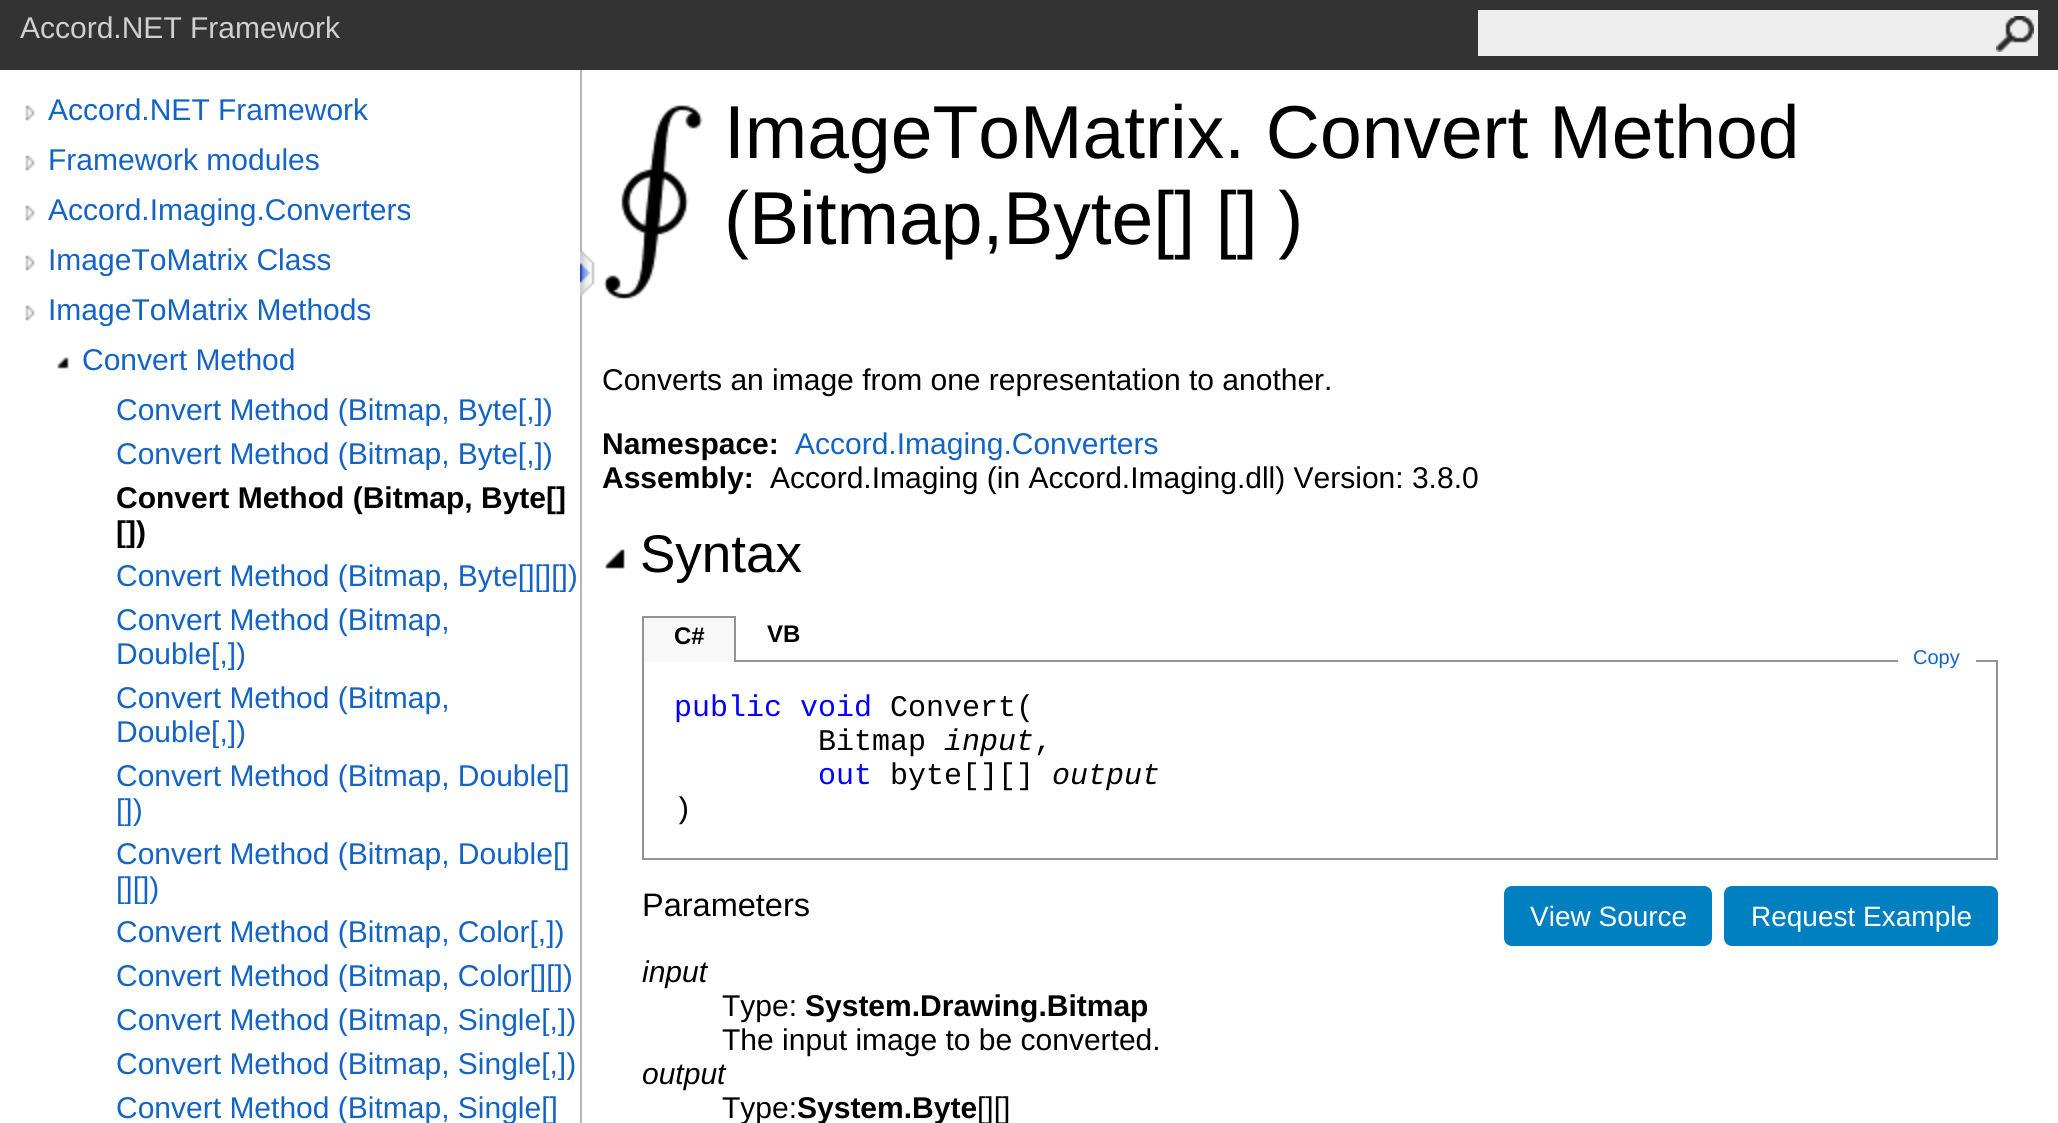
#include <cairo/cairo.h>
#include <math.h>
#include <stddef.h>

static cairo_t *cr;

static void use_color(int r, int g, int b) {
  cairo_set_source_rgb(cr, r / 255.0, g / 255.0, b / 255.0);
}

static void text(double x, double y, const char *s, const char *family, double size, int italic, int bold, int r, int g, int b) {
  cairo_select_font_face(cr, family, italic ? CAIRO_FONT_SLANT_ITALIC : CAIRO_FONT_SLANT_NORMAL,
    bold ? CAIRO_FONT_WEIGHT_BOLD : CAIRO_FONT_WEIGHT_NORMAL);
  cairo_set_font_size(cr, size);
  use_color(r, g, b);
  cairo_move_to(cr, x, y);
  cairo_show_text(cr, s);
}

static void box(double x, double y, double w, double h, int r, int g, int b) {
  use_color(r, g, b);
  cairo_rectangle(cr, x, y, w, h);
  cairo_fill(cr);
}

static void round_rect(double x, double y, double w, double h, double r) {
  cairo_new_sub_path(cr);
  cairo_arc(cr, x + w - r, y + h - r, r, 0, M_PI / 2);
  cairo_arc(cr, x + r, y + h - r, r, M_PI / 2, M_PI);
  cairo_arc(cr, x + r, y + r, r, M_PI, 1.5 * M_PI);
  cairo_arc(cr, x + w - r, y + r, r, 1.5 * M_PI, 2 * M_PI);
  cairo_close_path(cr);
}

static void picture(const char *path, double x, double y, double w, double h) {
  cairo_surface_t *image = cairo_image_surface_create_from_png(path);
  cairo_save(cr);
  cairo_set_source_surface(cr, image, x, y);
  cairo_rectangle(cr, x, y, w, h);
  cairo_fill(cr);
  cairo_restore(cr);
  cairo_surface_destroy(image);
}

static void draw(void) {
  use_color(255, 255, 255);
  cairo_paint(cr);
  box(0, 0, 2058, 70, 51, 51, 51);
  box(1478, 10, 560, 46, 238, 238, 238);
  picture("img_01.png", 1996, 16, 38, 36);
  box(580, 70, 2, 1053, 182, 182, 182);
  picture("img_02.png", 25, 105, 10, 16);
  picture("img_02.png", 25, 155, 10, 16);
  picture("img_02.png", 25, 205, 10, 16);
  picture("img_02.png", 25, 255, 10, 16);
  picture("img_02.png", 25, 305, 10, 16);
  picture("img_03.png", 57, 357, 12, 12);
  picture("img_04.png", 580, 250, 15, 46);
  picture("img_05.png", 603, 105, 100, 194);
  picture("img_06.png", 605, 549, 20, 20);
  cairo_rectangle(cr, 643, 661, 1354, 198);
  use_color(147, 147, 147);
  cairo_stroke(cr);
  box(644, 618, 90, 44, 248, 248, 248);
  box(642, 616, 94, 2, 147, 147, 147);
  box(734, 616, 2, 46, 147, 147, 147);
  box(642, 616, 2, 46, 147, 147, 147);
  box(1898, 660, 78, 2, 255, 255, 255);
  use_color(0, 128, 192);
  round_rect(1504, 886, 208, 60, 8);
  cairo_fill(cr);
  round_rect(1724, 886, 274, 60, 8);
  cairo_fill(cr);
  text(20, 38, "Accord.NET Framework", "Liberation Sans", 30, 0, 0, 208, 208, 208);
  text(48, 120, "Accord.NET Framework", "Liberation Sans", 30, 0, 0, 19, 100, 196);
  text(48, 170, "Framework modules", "Liberation Sans", 30, 0, 0, 19, 100, 196);
  cairo_save(cr);
  cairo_rectangle(cr, 48, 192, 532, 34);
  cairo_clip(cr);
  text(48, 220, "Accord.Imaging.Converters", "Liberation Sans", 30, 0, 0, 19, 100, 196);
  cairo_restore(cr);
  cairo_save(cr);
  cairo_rectangle(cr, 48, 242, 532, 34);
  cairo_clip(cr);
  text(48, 270, "ImageToMatrix Class", "Liberation Sans", 30, 0, 0, 19, 100, 196);
  cairo_restore(cr);
  cairo_save(cr);
  cairo_rectangle(cr, 48, 292, 532, 34);
  cairo_clip(cr);
  text(48, 320, "ImageToMatrix Methods", "Liberation Sans", 30, 0, 0, 19, 100, 196);
  cairo_restore(cr);
  text(82, 370, "Convert Method", "Liberation Sans", 30, 0, 0, 19, 100, 196);
  cairo_save(cr);
  cairo_rectangle(cr, 116, 392, 464, 34);
  cairo_clip(cr);
  text(116, 420, "Convert Method (Bitmap, Byte[,])", "Liberation Sans", 30, 0, 0, 19, 100, 196);
  cairo_restore(cr);
  cairo_save(cr);
  cairo_rectangle(cr, 116, 436, 464, 34);
  cairo_clip(cr);
  text(116, 464, "Convert Method (Bitmap, Byte[,])", "Liberation Sans", 30, 0, 0, 19, 100, 196);
  cairo_restore(cr);
  text(116, 508, "Convert Method (Bitmap, Byte[]", "Liberation Sans", 30, 0, 1, 0, 0, 0);
  cairo_save(cr);
  cairo_rectangle(cr, 116, 480, 464, 68);
  cairo_clip(cr);
  text(116, 542, "[])", "Liberation Sans", 30, 0, 1, 0, 0, 0);
  cairo_restore(cr);
  cairo_save(cr);
  cairo_rectangle(cr, 116, 558, 464, 34);
  cairo_clip(cr);
  text(116, 586, "Convert Method (Bitmap, Byte[][][])", "Liberation Sans", 30, 0, 0, 19, 100, 196);
  cairo_restore(cr);
  text(116, 630, "Convert Method (Bitmap,", "Liberation Sans", 30, 0, 0, 19, 100, 196);
  cairo_save(cr);
  cairo_rectangle(cr, 116, 602, 464, 68);
  cairo_clip(cr);
  text(116, 664, "Double[,])", "Liberation Sans", 30, 0, 0, 19, 100, 196);
  cairo_restore(cr);
  text(116, 708, "Convert Method (Bitmap,", "Liberation Sans", 30, 0, 0, 19, 100, 196);
  cairo_save(cr);
  cairo_rectangle(cr, 116, 680, 464, 68);
  cairo_clip(cr);
  text(116, 742, "Double[,])", "Liberation Sans", 30, 0, 0, 19, 100, 196);
  cairo_restore(cr);
  text(116, 786, "Convert Method (Bitmap, Double[]", "Liberation Sans", 30, 0, 0, 19, 100, 196);
  cairo_save(cr);
  cairo_rectangle(cr, 116, 758, 464, 68);
  cairo_clip(cr);
  text(116, 820, "[])", "Liberation Sans", 30, 0, 0, 19, 100, 196);
  cairo_restore(cr);
  text(116, 864, "Convert Method (Bitmap, Double[]", "Liberation Sans", 30, 0, 0, 19, 100, 196);
  cairo_save(cr);
  cairo_rectangle(cr, 116, 836, 464, 68);
  cairo_clip(cr);
  text(116, 898, "[][])", "Liberation Sans", 30, 0, 0, 19, 100, 196);
  cairo_restore(cr);
  cairo_save(cr);
  cairo_rectangle(cr, 116, 914, 464, 34);
  cairo_clip(cr);
  text(116, 942, "Convert Method (Bitmap, Color[,])", "Liberation Sans", 30, 0, 0, 19, 100, 196);
  cairo_restore(cr);
  cairo_save(cr);
  cairo_rectangle(cr, 116, 958, 464, 34);
  cairo_clip(cr);
  text(116, 986, "Convert Method (Bitmap, Color[][])", "Liberation Sans", 30, 0, 0, 19, 100, 196);
  cairo_restore(cr);
  cairo_save(cr);
  cairo_rectangle(cr, 116, 1002, 464, 34);
  cairo_clip(cr);
  text(116, 1030, "Convert Method (Bitmap, Single[,])", "Liberation Sans", 30, 0, 0, 19, 100, 196);
  cairo_restore(cr);
  cairo_save(cr);
  cairo_rectangle(cr, 116, 1046, 464, 34);
  cairo_clip(cr);
  text(116, 1074, "Convert Method (Bitmap, Single[,])", "Liberation Sans", 30, 0, 0, 19, 100, 196);
  cairo_restore(cr);
  text(116, 1118, "Convert Method (Bitmap, Single[]", "Liberation Sans", 30, 0, 0, 19, 100, 196);
  text(724, 158, "ImageToMatrix. Convert Method", "Liberation Sans", 75, 0, 0, 0, 0, 0);
  text(724, 244, "(Bitmap,Byte[] [] )", "Liberation Sans", 75, 0, 0, 0, 0, 0);
  text(602, 390, "Converts an image from one representation to another.", "Liberation Sans", 30, 0, 0, 0, 0, 0);
  text(602, 454, "Namespace:", "Liberation Sans", 30, 0, 1, 0, 0, 0);
  text(795, 454, "Accord.Imaging.Converters", "Liberation Sans", 30, 0, 0, 19, 100, 196);
  text(602, 488, "Assembly:", "Liberation Sans", 30, 0, 1, 0, 0, 0);
  text(770, 488, "Accord.Imaging (in Accord.Imaging.dll) Version: 3.8.0", "Liberation Sans", 30, 0, 0, 0, 0, 0);
  text(640, 572, "Syntax", "Liberation Sans", 53, 0, 0, 0, 0, 0);
  text(674, 644, "C#", "Liberation Sans", 24, 0, 1, 0, 0, 0);
  text(767, 642, "VB", "Liberation Sans", 24, 0, 1, 0, 0, 0);
  text(1913, 664, "Copy", "Liberation Sans", 20, 0, 0, 19, 100, 196);
  text(674, 716, "public void", "Liberation Mono", 30, 0, 0, 0, 0, 255);
  text(890, 716, "Convert(", "Liberation Mono", 30, 0, 0, 0, 0, 0);
  text(818, 750, "Bitmap", "Liberation Mono", 30, 0, 0, 0, 0, 0);
  text(944, 750, "input", "Liberation Mono", 30, 1, 0, 0, 0, 0);
  text(1034, 750, ",", "Liberation Mono", 30, 0, 0, 0, 0, 0);
  text(818, 784, "out", "Liberation Mono", 30, 0, 0, 0, 0, 255);
  text(890, 784, "byte[][]", "Liberation Mono", 30, 0, 0, 0, 0, 0);
  text(1052, 784, "output", "Liberation Mono", 30, 1, 0, 0, 0, 0);
  text(674, 818, ")", "Liberation Mono", 30, 0, 0, 0, 0, 0);
  text(642, 916, "Parameters", "Liberation Sans", 32.5, 0, 0, 0, 0, 0);
  text(1530, 926, "View Source", "Liberation Sans", 28, 0, 0, 255, 255, 255);
  text(1751, 926, "Request Example", "Liberation Sans", 28, 0, 0, 255, 255, 255);
  text(642, 982, "input", "Liberation Sans", 30, 1, 0, 0, 0, 0);
  text(722, 1016, "Type:", "Liberation Sans", 30, 0, 0, 0, 0, 0);
  text(805, 1016, "System.Drawing.Bitmap", "Liberation Sans", 30, 0, 1, 0, 0, 0);
  text(722, 1050, "The input image to be converted.", "Liberation Sans", 30, 0, 0, 0, 0, 0);
  text(642, 1084, "output", "Liberation Sans", 30, 1, 0, 0, 0, 0);
  text(722, 1118, "Type:", "Liberation Sans", 30, 0, 0, 0, 0, 0);
  text(797, 1118, "System.Byte", "Liberation Sans", 30, 0, 1, 0, 0, 0);
  text(977, 1118, "[][]", "Liberation Sans", 30, 0, 0, 0, 0, 0);
}

int main(void) {
  cairo_surface_t *surface = cairo_image_surface_create(CAIRO_FORMAT_RGB24, 2058, 1123);
  cr = cairo_create(surface);
  cairo_font_options_t *options = cairo_font_options_create();
  cairo_font_options_set_hint_metrics(options, CAIRO_HINT_METRICS_OFF);
  cairo_font_options_set_hint_style(options, CAIRO_HINT_STYLE_NONE);
  cairo_set_font_options(cr, options);
  cairo_set_miter_limit(cr, 4);
  draw();
  cairo_surface_write_to_png(surface, "out.png");
  cairo_font_options_destroy(options);
  cairo_destroy(cr);
  cairo_surface_destroy(surface);
  return 0;
}
